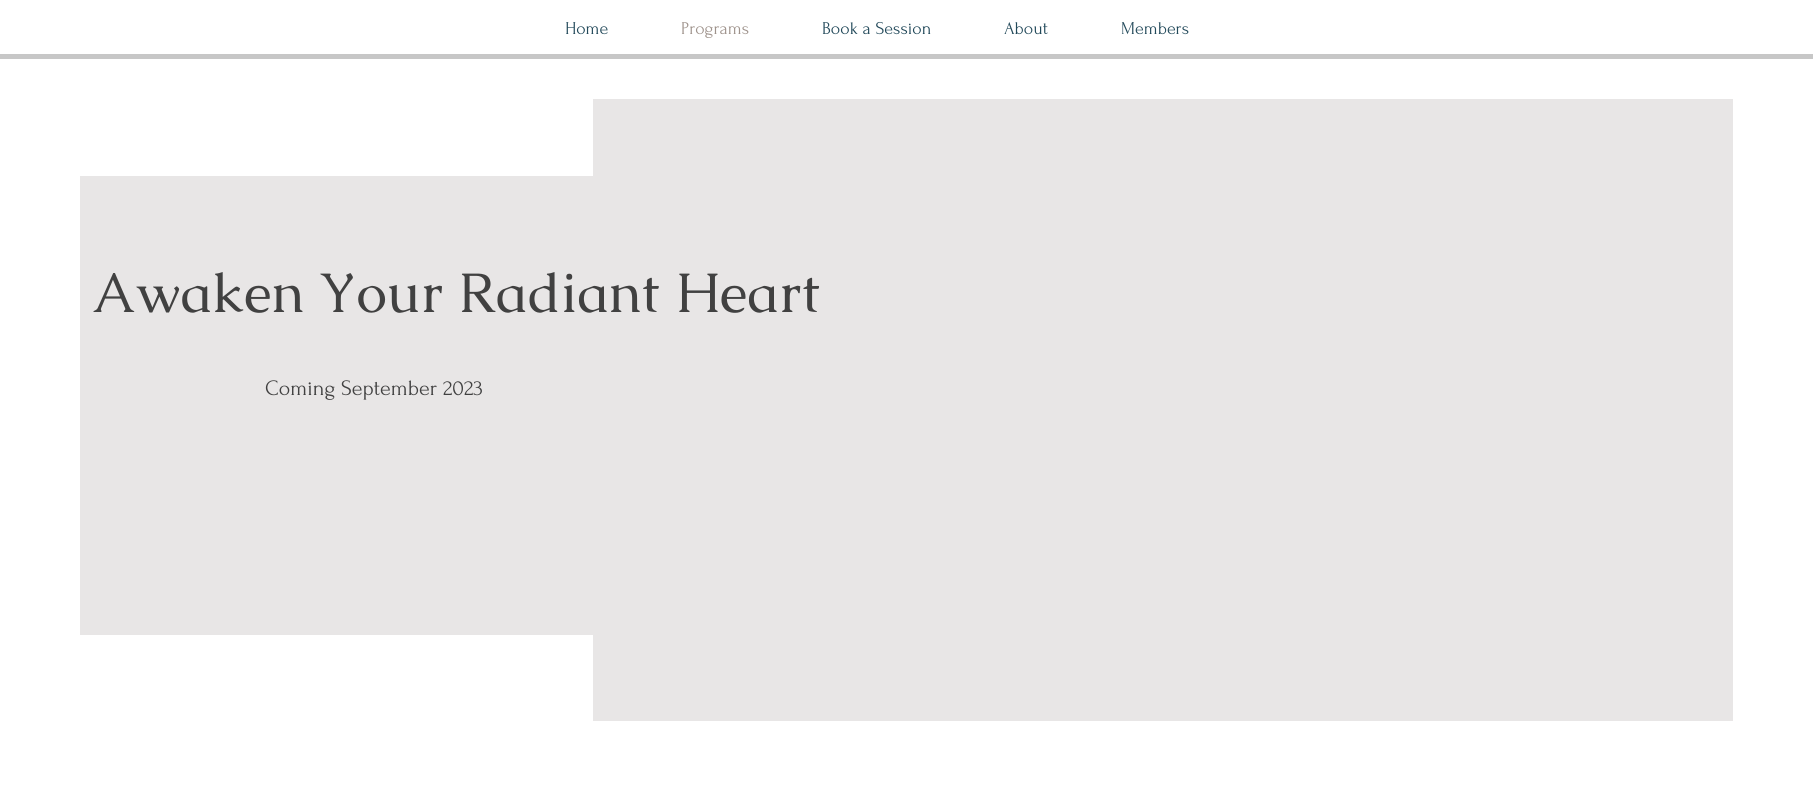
#include <cairo/cairo.h>
#include <math.h>
#include <stddef.h>

static cairo_t *cr;

static void use_color(int r, int g, int b) {
  cairo_set_source_rgb(cr, r / 255.0, g / 255.0, b / 255.0);
}

static void text(double x, double y, const char *s, const char *family, double size, int italic, int bold, int r, int g, int b) {
  cairo_select_font_face(cr, family, italic ? CAIRO_FONT_SLANT_ITALIC : CAIRO_FONT_SLANT_NORMAL,
    bold ? CAIRO_FONT_WEIGHT_BOLD : CAIRO_FONT_WEIGHT_NORMAL);
  cairo_set_font_size(cr, size);
  use_color(r, g, b);
  cairo_move_to(cr, x, y);
  cairo_show_text(cr, s);
}

static void box(double x, double y, double w, double h, int r, int g, int b) {
  use_color(r, g, b);
  cairo_rectangle(cr, x, y, w, h);
  cairo_fill(cr);
}

static void draw(void) {
  use_color(255, 255, 255);
  cairo_paint(cr);
  box(0, 54, 1813, 5, 199, 199, 199);
  box(80, 176, 513, 459, 232, 230, 230);
  box(593, 99, 1140, 622, 232, 230, 230);
  text(565, 34, "Home", "Forum", 18, 0, 0, 34, 73, 90);
  text(681, 34, "Programs", "Forum", 18, 0, 0, 158, 146, 139);
  text(822, 34, "Book a Session", "Forum", 18, 0, 0, 34, 73, 90);
  text(1004, 34, "About", "Forum", 18, 0, 0, 34, 73, 90);
  text(1121, 34, "Members", "Forum", 18, 0, 0, 34, 73, 90);
  text(92, 312, "Awaken Your Radiant Heart", "Caudex", 56, 0, 0, 65, 65, 65);
  text(265, 395, "Coming September 2023", "Forum", 22, 0, 0, 65, 65, 65);
}

int main(void) {
  cairo_surface_t *surface = cairo_image_surface_create(CAIRO_FORMAT_RGB24, 1813, 801);
  cr = cairo_create(surface);
  cairo_font_options_t *options = cairo_font_options_create();
  cairo_font_options_set_hint_metrics(options, CAIRO_HINT_METRICS_OFF);
  cairo_font_options_set_hint_style(options, CAIRO_HINT_STYLE_NONE);
  cairo_set_font_options(cr, options);
  cairo_set_miter_limit(cr, 4);
  draw();
  cairo_surface_write_to_png(surface, "out.png");
  cairo_font_options_destroy(options);
  cairo_destroy(cr);
  cairo_surface_destroy(surface);
  return 0;
}
